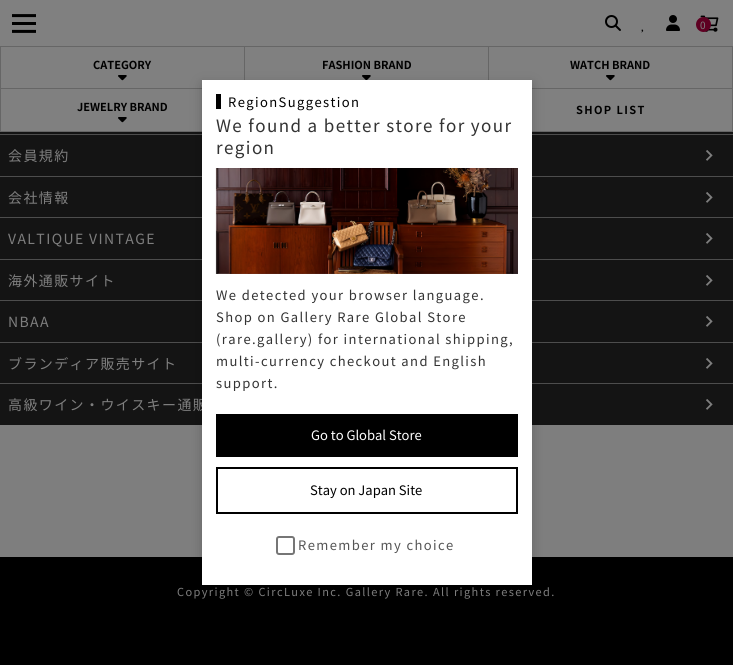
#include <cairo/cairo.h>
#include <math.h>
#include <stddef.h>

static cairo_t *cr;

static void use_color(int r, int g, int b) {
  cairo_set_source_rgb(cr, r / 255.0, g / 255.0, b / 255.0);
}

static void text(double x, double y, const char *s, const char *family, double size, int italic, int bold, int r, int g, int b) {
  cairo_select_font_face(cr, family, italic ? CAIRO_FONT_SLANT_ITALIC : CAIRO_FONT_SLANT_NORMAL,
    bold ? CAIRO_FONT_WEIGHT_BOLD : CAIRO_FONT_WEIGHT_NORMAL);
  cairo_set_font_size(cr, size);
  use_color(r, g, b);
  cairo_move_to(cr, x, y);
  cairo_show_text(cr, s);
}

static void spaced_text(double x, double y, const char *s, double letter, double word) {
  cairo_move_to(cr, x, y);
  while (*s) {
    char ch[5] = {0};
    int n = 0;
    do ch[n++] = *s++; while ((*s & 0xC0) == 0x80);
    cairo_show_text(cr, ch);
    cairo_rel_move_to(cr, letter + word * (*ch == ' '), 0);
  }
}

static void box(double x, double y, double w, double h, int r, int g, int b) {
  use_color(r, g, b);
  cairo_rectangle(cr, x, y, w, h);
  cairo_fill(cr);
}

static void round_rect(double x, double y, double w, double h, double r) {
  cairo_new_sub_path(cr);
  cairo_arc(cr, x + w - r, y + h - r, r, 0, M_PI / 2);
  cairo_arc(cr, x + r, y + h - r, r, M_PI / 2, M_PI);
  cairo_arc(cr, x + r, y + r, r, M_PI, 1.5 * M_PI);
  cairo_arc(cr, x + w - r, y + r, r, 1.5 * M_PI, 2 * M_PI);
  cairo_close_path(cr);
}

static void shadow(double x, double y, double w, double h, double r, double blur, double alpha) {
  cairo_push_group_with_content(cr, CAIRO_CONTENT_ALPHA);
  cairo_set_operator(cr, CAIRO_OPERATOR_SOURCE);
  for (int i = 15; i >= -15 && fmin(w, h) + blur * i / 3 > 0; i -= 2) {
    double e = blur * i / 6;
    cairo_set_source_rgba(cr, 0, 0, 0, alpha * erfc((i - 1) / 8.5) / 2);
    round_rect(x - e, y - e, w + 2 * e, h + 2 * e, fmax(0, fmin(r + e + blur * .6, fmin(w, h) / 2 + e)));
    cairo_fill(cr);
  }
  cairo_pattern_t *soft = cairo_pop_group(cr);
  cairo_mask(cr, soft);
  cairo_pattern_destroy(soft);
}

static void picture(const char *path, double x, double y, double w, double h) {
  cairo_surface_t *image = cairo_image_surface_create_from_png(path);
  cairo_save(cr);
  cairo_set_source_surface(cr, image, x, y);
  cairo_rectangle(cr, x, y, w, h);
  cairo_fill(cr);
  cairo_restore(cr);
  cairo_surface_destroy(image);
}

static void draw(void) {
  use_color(20, 20, 20);
  cairo_paint(cr);
  box(0, 0, 733, 131, 128, 128, 128);
  picture("img_01.png", 12, 14, 24, 19);
  picture("img_02.png", 605, 15, 16, 16);
  picture("img_03.png", 666, 15, 14, 16);
  picture("img_04.png", 700, 15, 19, 17);
  use_color(94, 0, 34);
  cairo_arc(cr, 703.5, 24.5, 7.5, 0, 2 * M_PI);
  cairo_fill(cr);
  picture("img_05.png", 641, 29, 3, 4);
  box(0, 46, 733, 1, 102, 102, 102);
  box(0, 46, 1, 86, 102, 102, 102);
  box(244, 47, 1, 33, 102, 102, 102);
  box(1, 88, 201, 1, 102, 102, 102);
  picture("img_06.png", 118, 75, 9, 6);
  box(488, 47, 1, 33, 102, 102, 102);
  picture("img_07.png", 362, 75, 9, 5);
  box(732, 47, 1, 85, 102, 102, 102);
  box(532, 88, 201, 1, 102, 102, 102);
  picture("img_06.png", 606, 75, 9, 6);
  box(1, 131, 201, 1, 102, 102, 102);
  picture("img_06.png", 118, 117, 9, 6);
  box(532, 131, 201, 1, 102, 102, 102);
  box(0, 134, 733, 1, 77, 77, 77);
  picture("img_08.png", 706, 150, 7, 11);
  box(0, 176, 733, 1, 77, 77, 77);
  picture("img_08.png", 706, 192, 7, 11);
  box(0, 217, 733, 1, 77, 77, 77);
  picture("img_08.png", 706, 233, 7, 11);
  box(0, 259, 733, 1, 77, 77, 77);
  picture("img_08.png", 706, 275, 7, 11);
  box(0, 300, 733, 1, 77, 77, 77);
  picture("img_08.png", 706, 316, 7, 11);
  box(0, 342, 733, 1, 77, 77, 77);
  picture("img_08.png", 706, 358, 7, 11);
  box(0, 383, 733, 1, 77, 77, 77);
  picture("img_08.png", 706, 399, 7, 11);
  box(0, 425, 733, 132, 126, 126, 126);
  box(0, 557, 733, 108, 0, 0, 0);
  use_color(0, 0, 0);
  shadow(202, 84, 330, 505, 0, 6, 0.2);
  cairo_select_font_face(cr, "Noto Sans JP", CAIRO_FONT_SLANT_NORMAL, CAIRO_FONT_WEIGHT_NORMAL);
  cairo_set_font_size(cr, 10);
  use_color(126, 126, 126);
  spaced_text(700, 29, "0", 1.4, 0);
  text(93, 69, "CATEGORY", "Noto Sans JP", 11, 0, 1, 0, 0, 0);
  text(322, 69, "FASHION BRAND", "Noto Sans JP", 11, 0, 1, 0, 0, 0);
  text(570, 69, "WATCH BRAND", "Noto Sans JP", 11, 0, 1, 0, 0, 0);
  text(77, 111, "JEWELRY BRAND", "Noto Sans JP", 11, 0, 1, 0, 0, 0);
  spaced_text(576, 114, "SHOP LIST", 1.4, 0);
  cairo_select_font_face(cr, "Noto Sans JP", CAIRO_FONT_SLANT_NORMAL, CAIRO_FONT_WEIGHT_NORMAL);
  cairo_set_font_size(cr, 14);
  use_color(126, 126, 126);
  spaced_text(8, 161, "会員規約", 1.4, 0);
  spaced_text(8, 203, "会社情報", 1.4, 0);
  spaced_text(8, 244, "VALTIQUE VINTAGE", 1.4, 0);
  spaced_text(8, 286, "海外通販サイト", 1.4, 0);
  spaced_text(8, 327, "NBAA", 1.4, 0);
  spaced_text(8, 369, "ブランディア販売サイト", 1.4, 0);
  spaced_text(8, 410, "高級ワイン・ウイスキー通販", 1.4, 0);
  box(202, 80, 330, 505, 255, 255, 255);
  box(216, 94, 5, 15, 0, 0, 0);
  cairo_set_font_size(cr, 13);
  spaced_text(228, 107, "RegionSuggestion", 1.4, 0);
  cairo_set_font_size(cr, 17);
  use_color(51, 51, 51);
  spaced_text(216, 132, "We found a better store for your", 1.4, 0);
  spaced_text(216, 154, "region", 1.4, 0);
  picture("img_09.png", 215, 168, 303, 106);
  cairo_set_font_size(cr, 13);
  spaced_text(216, 300, "We detected your browser language.", 1.4, 0);
  spaced_text(216, 322, "Shop on Gallery Rare Global Store", 1.4, 0);
  spaced_text(216, 344, "(rare.gallery) for international shipping,", 1.4, 0);
  spaced_text(216, 366, "multi-currency checkout and English", 1.4, 0);
  spaced_text(216, 388, "support.", 1.4, 0);
  box(216, 414, 302, 43, 0, 0, 0);
  text(311, 440, "Go to Global Store", "Noto Sans JP", 13, 0, 0, 255, 255, 255);
  cairo_rectangle(cr, 217, 468, 300, 45);
  use_color(0, 0, 0);
  cairo_stroke(cr);
  text(310, 495, "Stay on Japan Site", "Noto Sans JP", 13, 0, 0, 0, 0, 0);
  round_rect(277, 537, 17, 17, 2);
  use_color(118, 118, 118);
  cairo_stroke(cr);
  use_color(85, 85, 85);
  spaced_text(298, 550, "Remember my choice", 1.4, 0);
  cairo_set_font_size(cr, 11);
  use_color(126, 126, 126);
  spaced_text(177, 596, "Copyright © CircLuxe Inc. Gallery Rare. All rights reserved.", 1.4, 0);
}

int main(void) {
  cairo_surface_t *surface = cairo_image_surface_create(CAIRO_FORMAT_RGB24, 733, 665);
  cr = cairo_create(surface);
  cairo_font_options_t *options = cairo_font_options_create();
  cairo_font_options_set_hint_metrics(options, CAIRO_HINT_METRICS_OFF);
  cairo_font_options_set_hint_style(options, CAIRO_HINT_STYLE_NONE);
  cairo_set_font_options(cr, options);
  cairo_set_miter_limit(cr, 4);
  draw();
  cairo_surface_write_to_png(surface, "out.png");
  cairo_font_options_destroy(options);
  cairo_destroy(cr);
  cairo_surface_destroy(surface);
  return 0;
}
